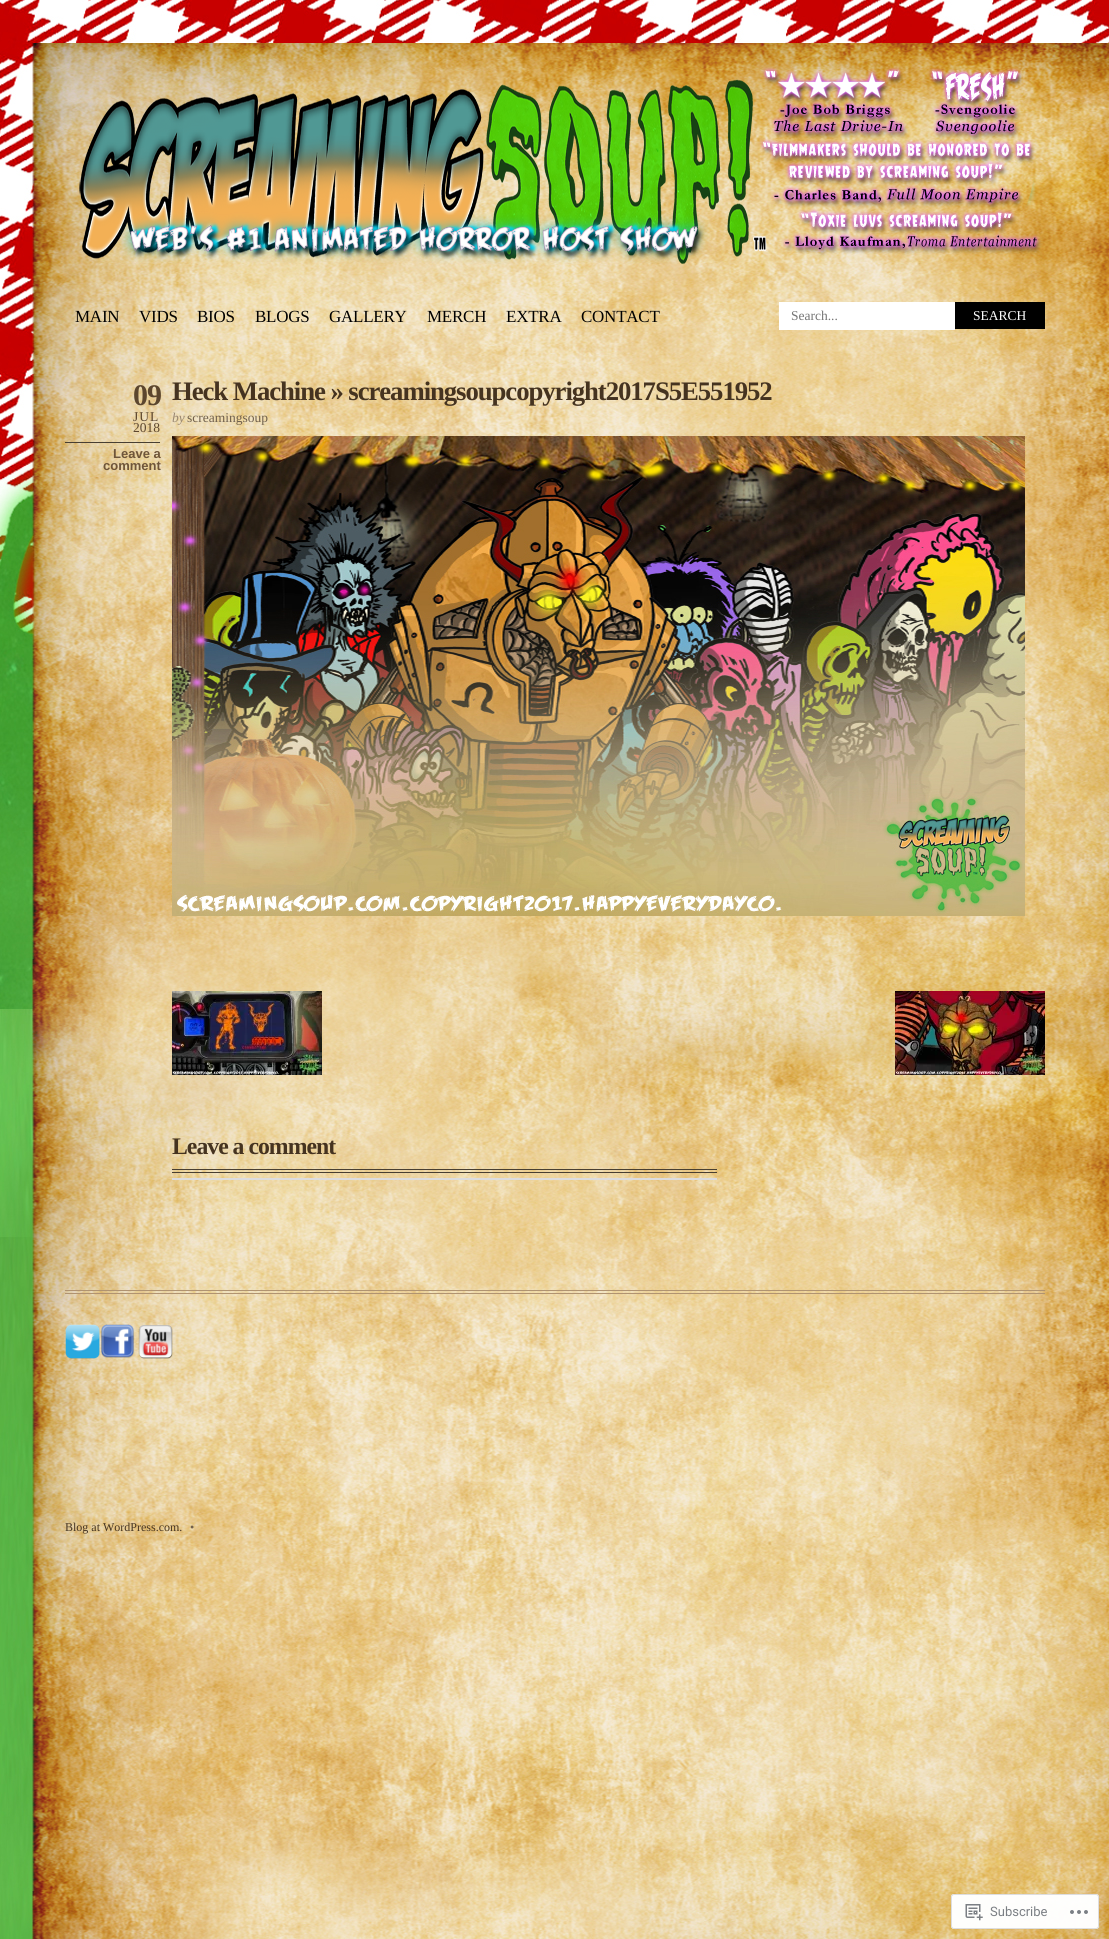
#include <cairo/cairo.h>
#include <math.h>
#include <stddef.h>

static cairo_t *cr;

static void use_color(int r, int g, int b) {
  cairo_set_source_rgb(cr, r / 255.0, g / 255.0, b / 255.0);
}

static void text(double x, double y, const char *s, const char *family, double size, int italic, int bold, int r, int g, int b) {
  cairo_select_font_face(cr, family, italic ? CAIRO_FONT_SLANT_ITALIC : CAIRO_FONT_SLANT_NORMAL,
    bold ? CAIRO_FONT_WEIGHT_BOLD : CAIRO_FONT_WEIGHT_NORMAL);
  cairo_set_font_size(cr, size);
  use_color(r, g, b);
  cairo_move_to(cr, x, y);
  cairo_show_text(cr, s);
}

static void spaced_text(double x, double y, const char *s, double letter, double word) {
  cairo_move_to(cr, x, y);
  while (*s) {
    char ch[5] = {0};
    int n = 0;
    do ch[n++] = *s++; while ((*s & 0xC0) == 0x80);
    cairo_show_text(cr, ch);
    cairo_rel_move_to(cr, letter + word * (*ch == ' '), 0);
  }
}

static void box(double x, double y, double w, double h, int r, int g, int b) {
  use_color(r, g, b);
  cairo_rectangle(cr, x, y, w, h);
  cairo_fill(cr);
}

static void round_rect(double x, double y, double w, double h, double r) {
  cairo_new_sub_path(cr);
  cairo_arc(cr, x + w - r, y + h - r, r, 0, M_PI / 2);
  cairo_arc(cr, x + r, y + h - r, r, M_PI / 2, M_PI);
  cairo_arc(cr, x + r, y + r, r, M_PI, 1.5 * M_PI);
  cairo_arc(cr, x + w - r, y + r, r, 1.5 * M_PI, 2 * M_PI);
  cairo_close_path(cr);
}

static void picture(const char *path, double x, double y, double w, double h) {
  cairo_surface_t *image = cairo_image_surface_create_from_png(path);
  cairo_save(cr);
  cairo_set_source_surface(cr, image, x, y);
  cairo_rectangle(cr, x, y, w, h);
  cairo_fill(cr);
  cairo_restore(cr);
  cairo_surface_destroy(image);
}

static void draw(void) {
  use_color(255, 255, 255);
  cairo_paint(cr);
  picture("img_01.png", 0, 0, 1109, 1939);
  picture("img_02.png", 79, 67, 963, 197);
  box(779, 302, 176, 28, 255, 255, 255);
  box(955, 302, 90, 27, 0, 0, 0);
  box(65, 442, 95, 1, 72, 63, 50);
  picture("img_03.png", 172, 436, 853, 480);
  picture("img_04.png", 172, 991, 150, 84);
  picture("img_05.png", 895, 991, 150, 84);
  box(172, 1169, 545, 1, 72, 63, 50);
  box(172, 1172, 545, 1, 72, 63, 50);
  box(172, 1178, 545, 2, 220, 220, 222);
  box(65, 1290, 980, 1, 176, 147, 112);
  box(65, 1293, 980, 1, 176, 147, 112);
  picture("img_06.png", 65, 1324, 35, 35);
  picture("img_07.png", 101, 1324, 34, 34);
  picture("img_08.png", 138, 1325, 35, 34);
  cairo_set_source_rgba(cr, 1, 1, 1, 0.98);
  round_rect(951, 1894, 148, 35, 3);
  cairo_fill(cr);
  round_rect(951.5, 1894.5, 147, 34, 2.5);
  cairo_set_source_rgba(cr, 0.863, 0.863, 0.871, 0.98);
  cairo_set_line_width(cr, 1);
  cairo_stroke(cr);
  picture("img_09.png", 965, 1904, 18, 17);
  picture("img_10.png", 1070, 1910, 18, 4);
  cairo_select_font_face(cr, "Liberation Serif", CAIRO_FONT_SLANT_NORMAL, CAIRO_FONT_WEIGHT_NORMAL);
  cairo_set_font_size(cr, 17);
  use_color(0, 0, 0);
  spaced_text(75, 322, "MAIN", -0.25, 0);
  spaced_text(139, 322, "VIDS", -0.25, 0);
  spaced_text(197, 322, "BIOS", -0.25, 0);
  spaced_text(255, 322, "BLOGS", -0.25, 0);
  spaced_text(329, 322, "GALLERY", -0.25, 0);
  spaced_text(427, 322, "MERCH", -0.25, 0);
  spaced_text(506, 322, "EXTRA", -0.25, 0);
  spaced_text(581, 322, "CONTACT", -0.25, 0);
  text(791, 320, "Search...", "Liberation Serif", 13.5, 0, 0, 117, 117, 117);
  text(973, 320, "SEARCH", "Liberation Serif", 13.5, 0, 0, 255, 255, 255);
  cairo_select_font_face(cr, "Liberation Serif", CAIRO_FONT_SLANT_NORMAL, CAIRO_FONT_WEIGHT_BOLD);
  cairo_set_font_size(cr, 30);
  use_color(92, 70, 46);
  spaced_text(133, 405, "09", -1, 0);
  cairo_select_font_face(cr, "Liberation Serif", CAIRO_FONT_SLANT_NORMAL, CAIRO_FONT_WEIGHT_NORMAL);
  cairo_set_font_size(cr, 13.5);
  spaced_text(133, 421, "JUL", 1, 0);
  text(133, 432, "2018", "Liberation Serif", 13.5, 0, 0, 92, 70, 46);
  text(113, 458, "Leave a", "Liberation Sans", 13, 0, 1, 110, 85, 57);
  text(103, 470, "comment", "Liberation Sans", 13, 0, 1, 110, 85, 57);
  cairo_select_font_face(cr, "Liberation Serif", CAIRO_FONT_SLANT_NORMAL, CAIRO_FONT_WEIGHT_BOLD);
  cairo_set_font_size(cr, 26.75);
  use_color(69, 51, 32);
  spaced_text(172, 400, "Heck Machine » screamingsoupcopyright2017S5E551952", -1.07, 0);
  text(172, 422, "by", "Liberation Serif", 13.5, 1, 0, 154, 135, 112);
  text(187, 422, "screamingsoup", "Liberation Serif", 13.5, 0, 0, 112, 96, 76);
  cairo_select_font_face(cr, "Liberation Serif", CAIRO_FONT_SLANT_NORMAL, CAIRO_FONT_WEIGHT_BOLD);
  cairo_set_font_size(cr, 23.75);
  use_color(69, 51, 32);
  spaced_text(172, 1154, "Leave a comment", -1, 0);
  text(65, 1531, "Blog at WordPress.com.", "Liberation Serif", 12, 0, 0, 69, 51, 32);
  text(190, 1531, "•", "Liberation Serif", 12, 0, 0, 112, 96, 76);
  text(990, 1916, "Subscribe", "Roboto", 13, 0, 0, 123, 127, 132);
}

int main(void) {
  cairo_surface_t *surface = cairo_image_surface_create(CAIRO_FORMAT_RGB24, 1109, 1939);
  cr = cairo_create(surface);
  cairo_font_options_t *options = cairo_font_options_create();
  cairo_font_options_set_hint_metrics(options, CAIRO_HINT_METRICS_OFF);
  cairo_font_options_set_hint_style(options, CAIRO_HINT_STYLE_NONE);
  cairo_set_font_options(cr, options);
  cairo_set_miter_limit(cr, 4);
  draw();
  cairo_surface_write_to_png(surface, "out.png");
  cairo_font_options_destroy(options);
  cairo_destroy(cr);
  cairo_surface_destroy(surface);
  return 0;
}
